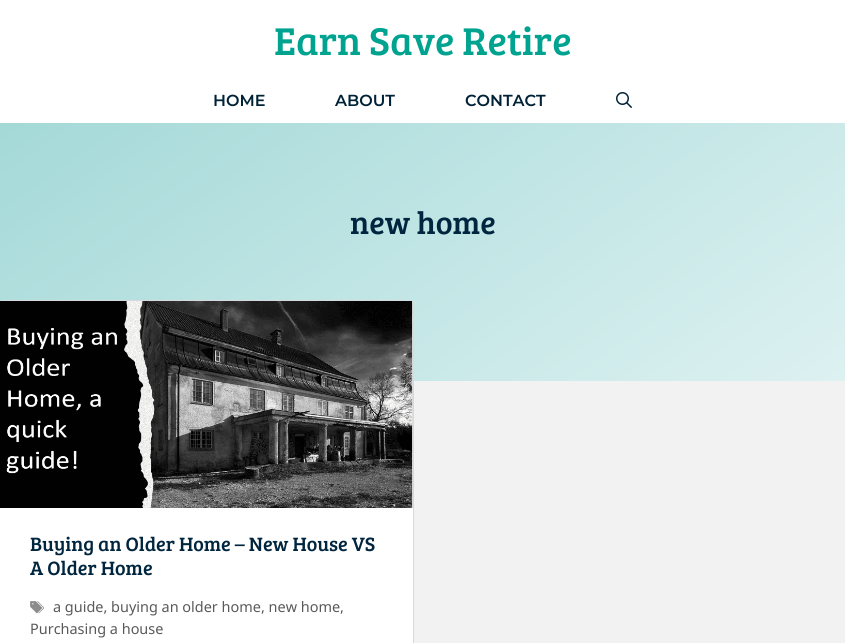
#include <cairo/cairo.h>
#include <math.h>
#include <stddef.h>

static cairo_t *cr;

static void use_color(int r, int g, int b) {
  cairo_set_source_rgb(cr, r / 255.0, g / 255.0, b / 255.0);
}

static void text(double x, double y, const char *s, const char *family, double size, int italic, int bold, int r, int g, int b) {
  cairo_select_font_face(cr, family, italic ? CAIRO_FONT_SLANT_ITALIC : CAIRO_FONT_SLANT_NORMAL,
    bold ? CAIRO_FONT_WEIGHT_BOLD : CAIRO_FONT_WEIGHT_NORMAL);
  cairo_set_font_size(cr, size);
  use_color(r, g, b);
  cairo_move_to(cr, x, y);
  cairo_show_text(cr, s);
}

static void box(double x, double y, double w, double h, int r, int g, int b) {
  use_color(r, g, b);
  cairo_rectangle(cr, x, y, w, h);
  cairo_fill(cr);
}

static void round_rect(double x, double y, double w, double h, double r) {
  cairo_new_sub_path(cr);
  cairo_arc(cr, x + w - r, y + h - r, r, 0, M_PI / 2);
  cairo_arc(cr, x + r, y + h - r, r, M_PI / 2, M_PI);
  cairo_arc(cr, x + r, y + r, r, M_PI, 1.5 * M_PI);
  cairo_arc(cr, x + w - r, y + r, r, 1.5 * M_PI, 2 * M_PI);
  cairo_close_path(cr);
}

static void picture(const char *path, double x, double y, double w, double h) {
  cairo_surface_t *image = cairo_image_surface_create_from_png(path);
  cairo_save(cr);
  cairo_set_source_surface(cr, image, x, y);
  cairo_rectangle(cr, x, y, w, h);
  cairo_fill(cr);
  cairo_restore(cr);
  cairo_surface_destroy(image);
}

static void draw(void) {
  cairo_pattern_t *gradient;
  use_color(242, 242, 242);
  cairo_paint(cr);
  box(0, 0, 845, 123, 255, 255, 255);
  picture("img_01.png", 616, 92, 16, 16);
  gradient = cairo_pattern_create_linear(223, -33, 622, 537);
  cairo_pattern_add_color_stop_rgba(gradient, 0, 0.643, 0.851, 0.847, 1);
  cairo_pattern_add_color_stop_rgba(gradient, 1, 0.867, 0.945, 0.945, 1);
  cairo_set_source(cr, gradient);
  cairo_pattern_destroy(gradient);
  cairo_rectangle(cr, 0, 123, 845, 258);
  cairo_fill(cr);
  round_rect(-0.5, 300.5, 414, 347, 3.5);
  use_color(214, 218, 222);
  cairo_set_line_width(cr, 1);
  cairo_stroke(cr);
  box(0, 508, 413, 135, 255, 255, 255);
  picture("img_02.png", 0, 301, 413, 207);
  picture("img_03.png", 30, 601, 14, 13);
  text(274, 55, "Earn Save Retire", "Bree Serif", 40, 0, 0, 0, 163, 144);
  text(213, 106, "HOME", "Montserrat SemiBold", 16, 0, 0, 0, 34, 54);
  text(335, 106, "ABOUT", "Montserrat SemiBold", 16, 0, 0, 0, 34, 54);
  text(465, 106, "CONTACT", "Montserrat SemiBold", 16, 0, 0, 0, 34, 54);
  text(350, 234, "new home", "Bree Serif", 32, 0, 0, 0, 37, 62);
  text(30, 551, "Buying an Older Home – New House VS", "Bree Serif", 20, 0, 0, 0, 37, 62);
  text(30, 575, "A Older Home", "Bree Serif", 20, 0, 0, 0, 37, 62);
  text(53, 612, "a guide, buying an older home, new home,", "Noto Sans", 14.45, 0, 0, 89, 89, 89);
  text(30, 634, "Purchasing a house", "Noto Sans", 14.45, 0, 0, 89, 89, 89);
}

int main(void) {
  cairo_surface_t *surface = cairo_image_surface_create(CAIRO_FORMAT_RGB24, 845, 643);
  cr = cairo_create(surface);
  cairo_font_options_t *options = cairo_font_options_create();
  cairo_font_options_set_hint_metrics(options, CAIRO_HINT_METRICS_OFF);
  cairo_font_options_set_hint_style(options, CAIRO_HINT_STYLE_NONE);
  cairo_set_font_options(cr, options);
  cairo_set_miter_limit(cr, 4);
  draw();
  cairo_surface_write_to_png(surface, "out.png");
  cairo_font_options_destroy(options);
  cairo_destroy(cr);
  cairo_surface_destroy(surface);
  return 0;
}
